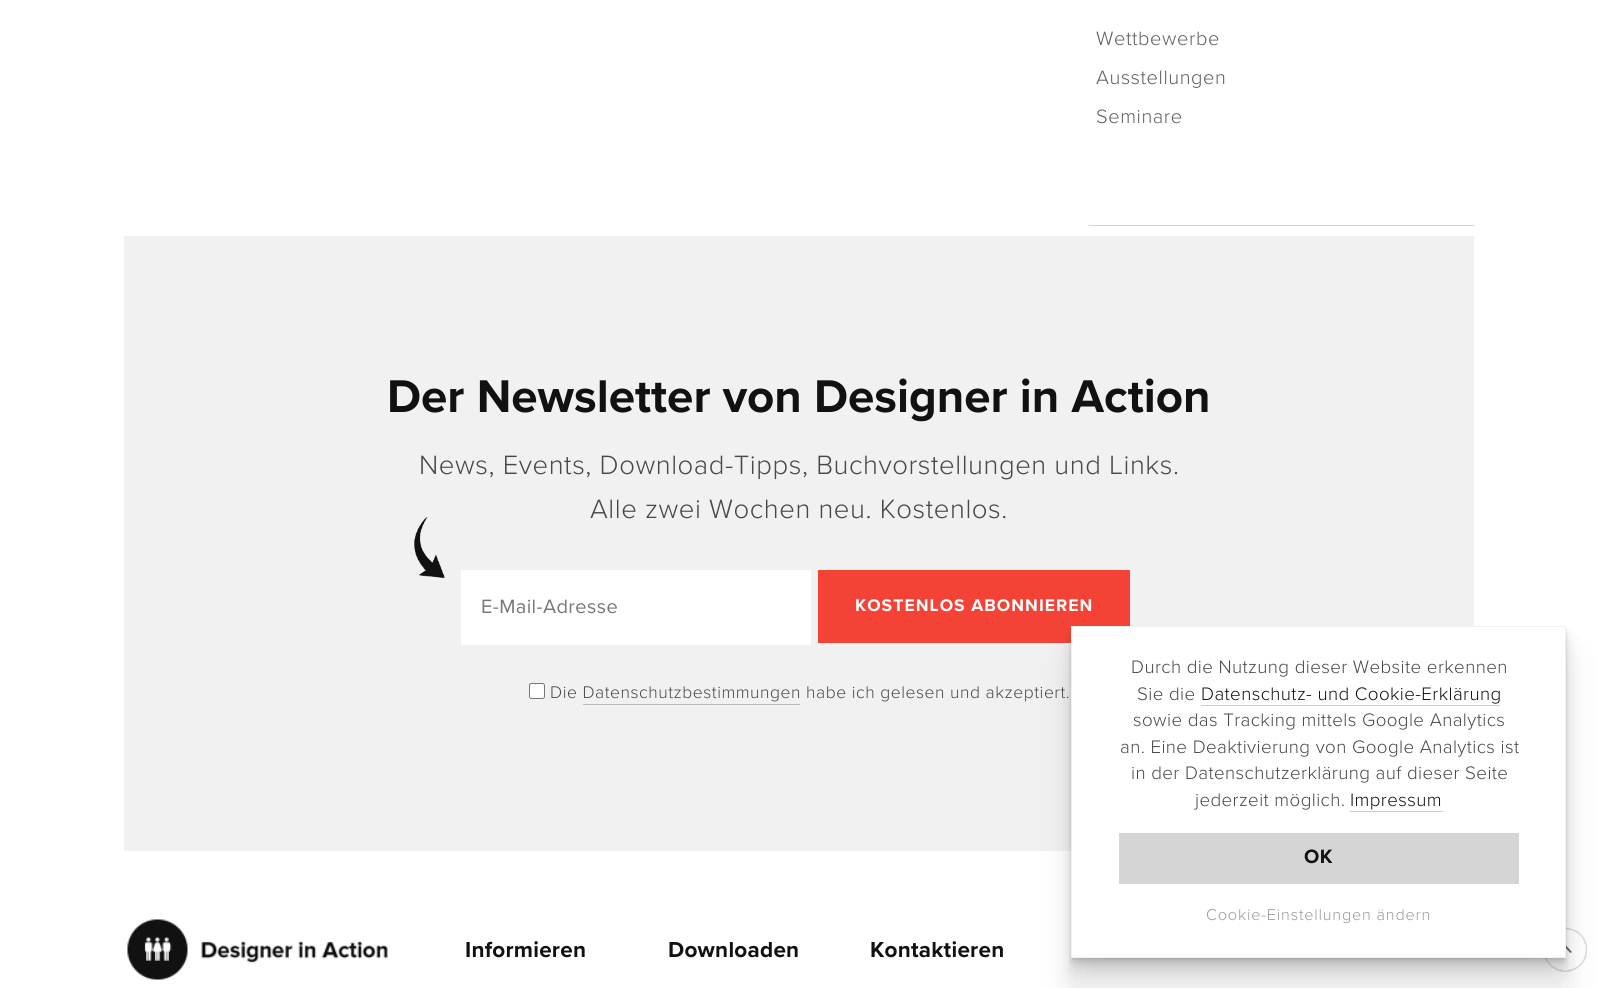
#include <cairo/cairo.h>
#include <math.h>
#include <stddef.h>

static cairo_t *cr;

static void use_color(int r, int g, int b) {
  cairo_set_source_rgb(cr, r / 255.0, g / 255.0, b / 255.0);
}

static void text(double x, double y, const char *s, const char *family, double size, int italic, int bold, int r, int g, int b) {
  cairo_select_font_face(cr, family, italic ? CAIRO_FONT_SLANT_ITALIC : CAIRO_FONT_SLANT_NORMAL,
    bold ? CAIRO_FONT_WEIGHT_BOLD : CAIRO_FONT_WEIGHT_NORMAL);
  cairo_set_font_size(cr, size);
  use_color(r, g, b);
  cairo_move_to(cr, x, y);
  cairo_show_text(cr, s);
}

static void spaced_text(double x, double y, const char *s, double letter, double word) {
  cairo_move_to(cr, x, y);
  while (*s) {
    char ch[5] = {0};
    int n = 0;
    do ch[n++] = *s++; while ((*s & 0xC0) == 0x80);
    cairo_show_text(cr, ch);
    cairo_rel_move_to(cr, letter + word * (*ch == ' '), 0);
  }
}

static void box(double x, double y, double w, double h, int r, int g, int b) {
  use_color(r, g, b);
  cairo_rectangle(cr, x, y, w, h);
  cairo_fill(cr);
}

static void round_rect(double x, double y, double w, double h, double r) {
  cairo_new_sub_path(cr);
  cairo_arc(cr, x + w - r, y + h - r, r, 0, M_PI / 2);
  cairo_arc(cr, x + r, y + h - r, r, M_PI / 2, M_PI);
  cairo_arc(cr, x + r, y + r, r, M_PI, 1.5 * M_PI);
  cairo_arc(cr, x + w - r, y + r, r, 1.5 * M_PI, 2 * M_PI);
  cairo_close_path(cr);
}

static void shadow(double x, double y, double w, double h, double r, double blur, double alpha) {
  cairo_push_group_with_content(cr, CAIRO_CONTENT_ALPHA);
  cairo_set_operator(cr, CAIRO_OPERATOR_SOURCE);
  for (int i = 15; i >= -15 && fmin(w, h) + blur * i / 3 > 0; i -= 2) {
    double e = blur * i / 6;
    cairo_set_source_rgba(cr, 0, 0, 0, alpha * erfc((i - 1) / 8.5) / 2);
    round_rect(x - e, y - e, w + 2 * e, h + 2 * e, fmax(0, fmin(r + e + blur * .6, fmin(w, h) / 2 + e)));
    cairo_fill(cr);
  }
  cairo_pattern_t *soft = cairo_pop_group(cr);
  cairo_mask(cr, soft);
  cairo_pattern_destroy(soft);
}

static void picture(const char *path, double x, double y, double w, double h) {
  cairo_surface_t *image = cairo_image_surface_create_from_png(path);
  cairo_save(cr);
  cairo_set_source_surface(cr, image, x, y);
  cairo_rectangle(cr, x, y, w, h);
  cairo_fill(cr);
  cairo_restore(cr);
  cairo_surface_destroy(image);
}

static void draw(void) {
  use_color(255, 255, 255);
  cairo_paint(cr);
  box(1089, 225, 385, 1, 213, 213, 213);
  box(124, 236, 1350, 615, 241, 241, 241);
  picture("img_01.png", 414, 517, 31, 62);
  box(461, 570, 350, 75, 255, 255, 255);
  box(818, 570, 312, 73, 244, 67, 54);
  use_color(255, 255, 255);
  round_rect(529.5, 683.5, 15, 15, 2);
  cairo_fill_preserve(cr);
  use_color(118, 118, 118);
  cairo_set_line_width(cr, 1);
  cairo_stroke(cr);
  box(583, 704, 217, 1, 187, 187, 187);
  picture("img_02.png", 127, 919, 261, 61);
  picture("img_03.png", 1544, 927, 43, 45);
  use_color(48, 48, 48);
  shadow(1071, 661, 495, 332, 0, 17.5, 0.1);
  shadow(1071, 645, 495, 331, 0, 9.5, 0.1);
  shadow(1071, 636, 495, 332, 0, 5, 0.1);
  shadow(1071, 631, 495, 332, 0, 2.5, 0.1);
  shadow(1071, 629, 495, 331, 0, 1, 0.1);
  use_color(255, 255, 255);
  cairo_rectangle(cr, 1071.5, 626.5, 494, 331);
  cairo_fill_preserve(cr);
  use_color(241, 241, 241);
  cairo_stroke(cr);
  box(1201, 705, 299, 1, 205, 205, 205);
  box(1350, 811, 93, 1, 205, 205, 205);
  box(1119, 833, 400, 51, 213, 213, 213);
  cairo_select_font_face(cr, "Proxima Nova Light", CAIRO_FONT_SLANT_NORMAL, CAIRO_FONT_WEIGHT_NORMAL);
  cairo_set_font_size(cr, 20);
  use_color(94, 94, 94);
  spaced_text(1096, 45, "Wettbewerbe", 0.6, 0);
  spaced_text(1096, 84, "Ausstellungen", 0.6, 0);
  spaced_text(1096, 123, "Seminare", 0.6, 0);
  text(387, 412, "Der Newsletter von Designer in Action", "Proxima Nova", 47.5, 0, 1, 17, 17, 17);
  cairo_select_font_face(cr, "Proxima Nova Light", CAIRO_FONT_SLANT_NORMAL, CAIRO_FONT_WEIGHT_NORMAL);
  cairo_set_font_size(cr, 27.5);
  use_color(72, 72, 72);
  spaced_text(419, 474, "News, Events, Download-Tipps, Buchvorstellungen und Links.", 0.55, 0);
  spaced_text(590, 518, "Alle zwei Wochen neu. Kostenlos.", 0.55, 0);
  cairo_select_font_face(cr, "Proxima Nova", CAIRO_FONT_SLANT_NORMAL, CAIRO_FONT_WEIGHT_NORMAL);
  cairo_set_font_size(cr, 20);
  use_color(121, 119, 116);
  spaced_text(481, 613, "E-Mail-Adresse", 0.4, 0);
  cairo_select_font_face(cr, "Proxima Nova", CAIRO_FONT_SLANT_NORMAL, CAIRO_FONT_WEIGHT_BOLD);
  cairo_set_font_size(cr, 17.5);
  use_color(255, 255, 255);
  spaced_text(855, 611, "KOSTENLOS ABONNIEREN", 1.05, 0);
  cairo_select_font_face(cr, "Proxima Nova Light", CAIRO_FONT_SLANT_NORMAL, CAIRO_FONT_WEIGHT_NORMAL);
  use_color(72, 72, 72);
  spaced_text(550, 698, "Die Datenschutzbestimmungen habe ich gelesen und akzeptiert.", 0.53, 0);
  cairo_select_font_face(cr, "Proxima Nova", CAIRO_FONT_SLANT_NORMAL, CAIRO_FONT_WEIGHT_BOLD);
  cairo_set_font_size(cr, 22.5);
  use_color(17, 17, 17);
  spaced_text(465, 957, "Informieren", 0.25, 0);
  spaced_text(668, 957, "Downloaden", 0.25, 0);
  spaced_text(870, 957, "Kontaktieren", 0.25, 0);
  cairo_select_font_face(cr, "Proxima Nova Light", CAIRO_FONT_SLANT_NORMAL, CAIRO_FONT_WEIGHT_NORMAL);
  cairo_set_font_size(cr, 18.75);
  use_color(72, 72, 72);
  spaced_text(1131, 673, "Durch die Nutzung dieser Website erkennen", 0.4, 0);
  spaced_text(1137, 700, "Sie die", 0.4, 0);
  use_color(17, 17, 17);
  spaced_text(1201, 700, "Datenschutz- und Cookie-Erklärung", 0.4, 0);
  use_color(72, 72, 72);
  spaced_text(1133, 726, "sowie das Tracking mittels Google Analytics", 0.4, 0);
  spaced_text(1120, 753, "an. Eine Deaktivierung von Google Analytics ist", 0.4, 0);
  spaced_text(1131, 779, "in der Datenschutzerklärung auf dieser Seite", 0.4, 0);
  spaced_text(1195, 806, "jederzeit möglich.", 0.4, 0);
  use_color(17, 17, 17);
  spaced_text(1350, 806, "Impressum", 0.4, 0);
  cairo_select_font_face(cr, "Proxima Nova", CAIRO_FONT_SLANT_NORMAL, CAIRO_FONT_WEIGHT_BOLD);
  cairo_set_font_size(cr, 20);
  spaced_text(1304, 863, "OK", 0.4, 0);
  cairo_select_font_face(cr, "Proxima Nova Light", CAIRO_FONT_SLANT_NORMAL, CAIRO_FONT_WEIGHT_NORMAL);
  cairo_set_font_size(cr, 16.25);
  use_color(153, 153, 153);
  spaced_text(1206, 920, "Cookie-Einstellungen ändern", 0.8, 0);
}

int main(void) {
  cairo_surface_t *surface = cairo_image_surface_create(CAIRO_FORMAT_RGB24, 1597, 988);
  cr = cairo_create(surface);
  cairo_font_options_t *options = cairo_font_options_create();
  cairo_font_options_set_hint_metrics(options, CAIRO_HINT_METRICS_OFF);
  cairo_font_options_set_hint_style(options, CAIRO_HINT_STYLE_NONE);
  cairo_set_font_options(cr, options);
  cairo_set_miter_limit(cr, 4);
  draw();
  cairo_surface_write_to_png(surface, "out.png");
  cairo_font_options_destroy(options);
  cairo_destroy(cr);
  cairo_surface_destroy(surface);
  return 0;
}
